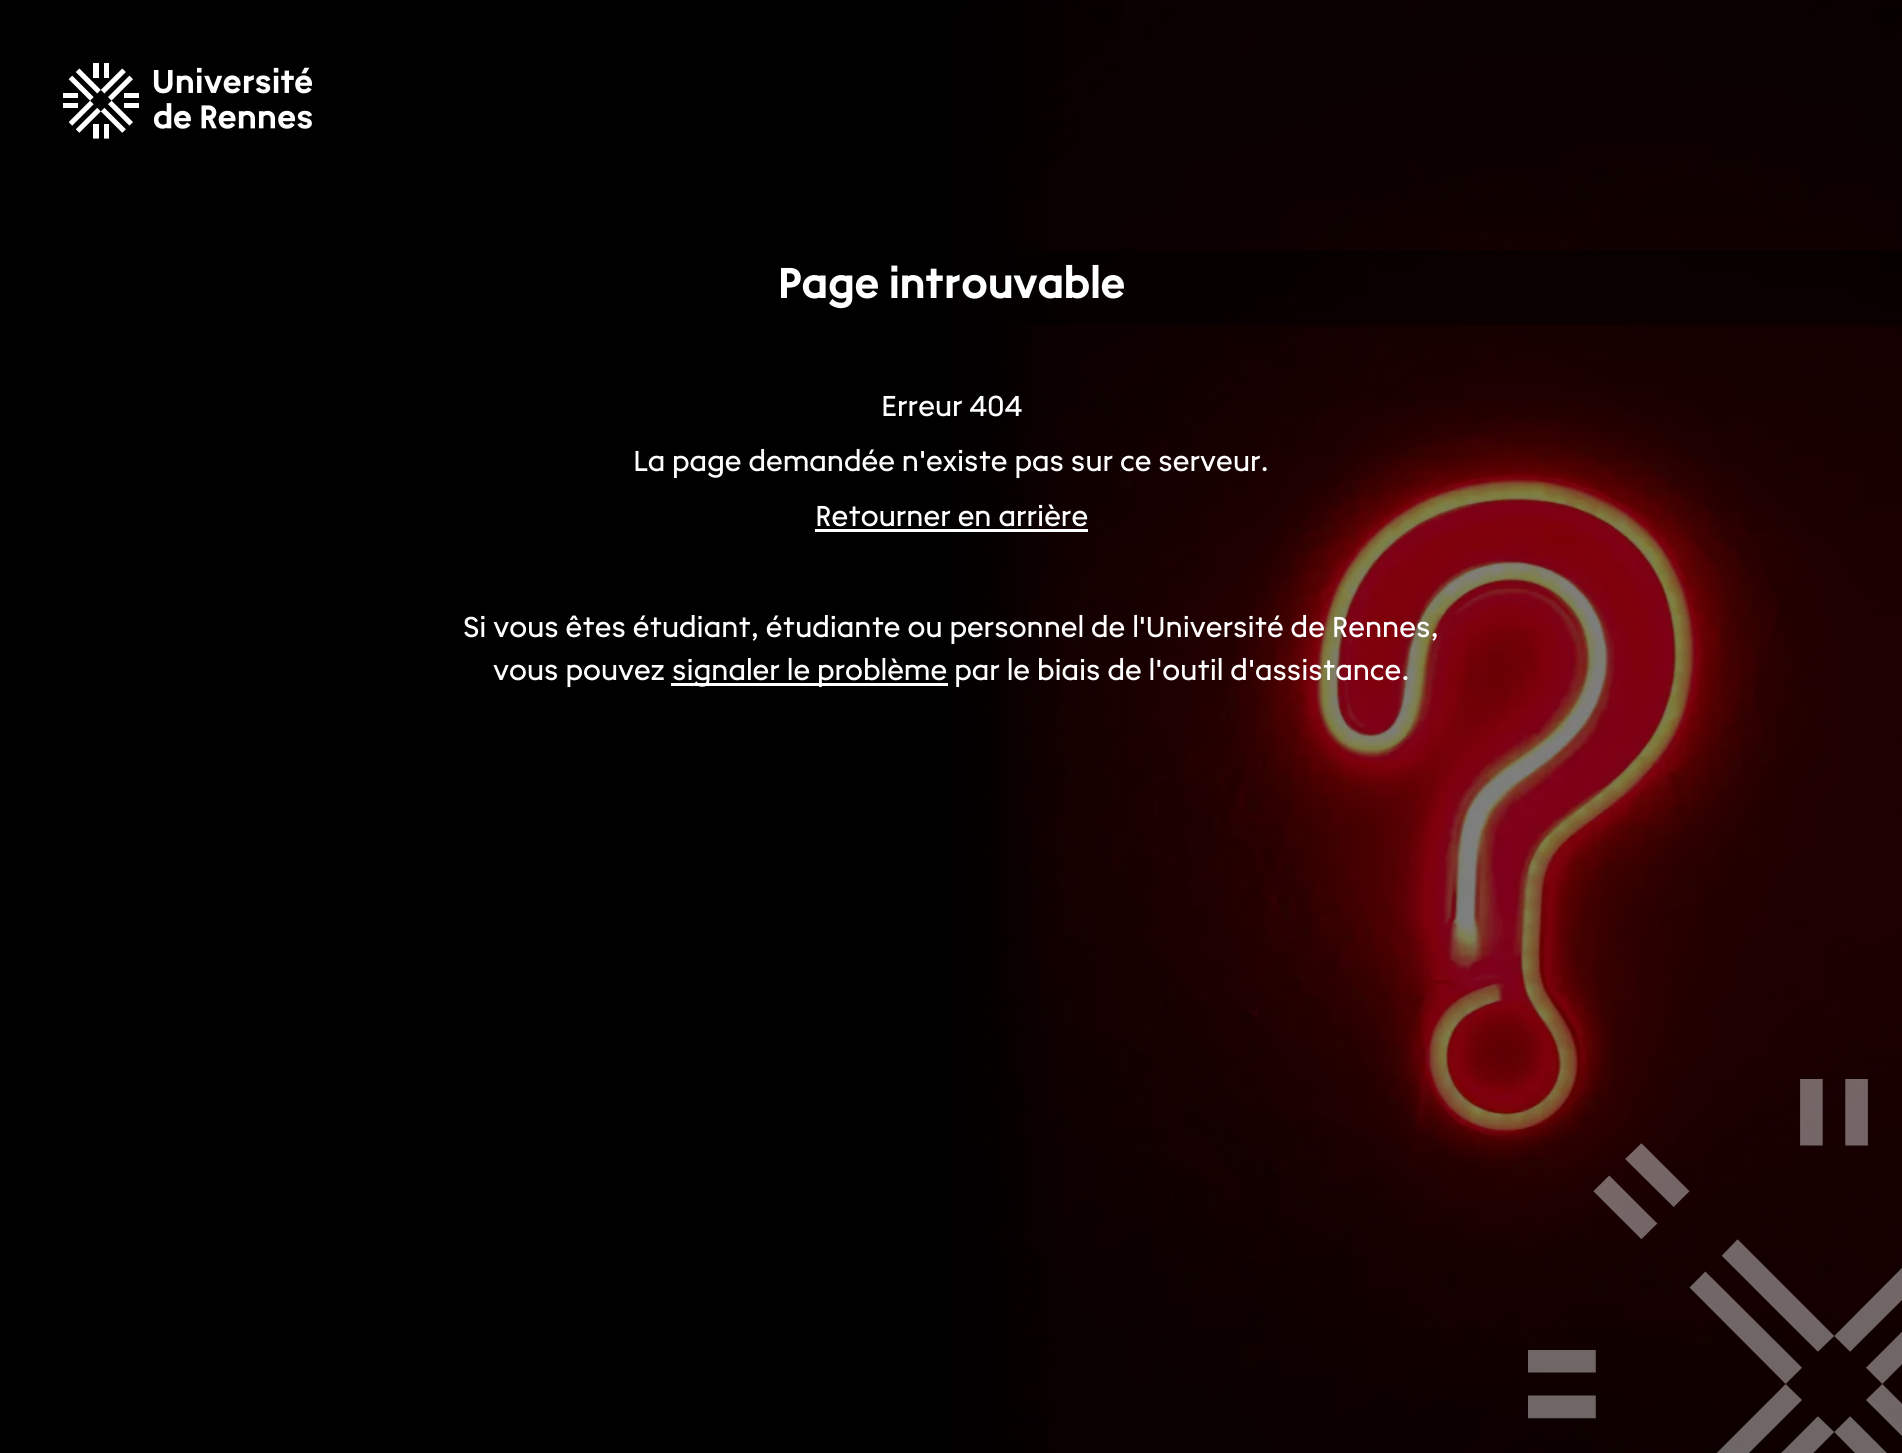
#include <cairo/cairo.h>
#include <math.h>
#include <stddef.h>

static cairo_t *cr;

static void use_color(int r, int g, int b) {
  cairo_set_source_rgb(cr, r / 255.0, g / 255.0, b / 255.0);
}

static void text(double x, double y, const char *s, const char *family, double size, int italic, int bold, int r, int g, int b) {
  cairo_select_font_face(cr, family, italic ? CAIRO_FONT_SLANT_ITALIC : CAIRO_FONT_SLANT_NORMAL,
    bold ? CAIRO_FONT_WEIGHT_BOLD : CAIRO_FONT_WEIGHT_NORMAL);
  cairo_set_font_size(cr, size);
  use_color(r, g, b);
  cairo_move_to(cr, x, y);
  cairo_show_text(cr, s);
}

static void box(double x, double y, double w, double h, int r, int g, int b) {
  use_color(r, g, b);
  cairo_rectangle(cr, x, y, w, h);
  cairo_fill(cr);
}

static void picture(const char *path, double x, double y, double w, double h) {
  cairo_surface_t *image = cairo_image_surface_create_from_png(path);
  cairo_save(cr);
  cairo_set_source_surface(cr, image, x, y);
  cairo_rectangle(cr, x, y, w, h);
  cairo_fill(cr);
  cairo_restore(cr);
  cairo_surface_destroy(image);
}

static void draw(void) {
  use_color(255, 255, 255);
  cairo_paint(cr);
  picture("img_01.png", 0, 0, 1902, 1453);
  picture("img_02.png", 1528, 1079, 374, 374);
  picture("img_03.png", 63, 63, 249, 76);
  cairo_set_source_rgba(cr, 0, 0, 0, 0.5);
  cairo_rectangle(cr, 1007, 250, 895, 75);
  cairo_fill(cr);
  box(815, 529, 273, 3, 255, 255, 255);
  box(671, 683, 277, 3, 255, 255, 255);
  text(778, 298, "Page introuvable", "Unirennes", 45, 0, 1, 255, 255, 255);
  text(881, 416, "Erreur 404", "Unirennes", 30, 0, 0, 255, 255, 255);
  text(633, 471, "La page demandée n'existe pas sur ce serveur.", "Unirennes", 30, 0, 0, 255, 255, 255);
  text(815, 526, "Retourner en arrière", "Unirennes", 30, 0, 0, 255, 255, 255);
  text(463, 637, "Si vous êtes étudiant, étudiante ou personnel de l'Université de Rennes,", "Unirennes", 30, 0, 0, 255, 255, 255);
  text(493, 680, "vous pouvez", "Unirennes", 30, 0, 0, 255, 255, 255);
  text(672, 680, "signaler le problème par le biais de l'outil d'assistance.", "Unirennes", 30, 0, 0, 255, 255, 255);
}

int main(void) {
  cairo_surface_t *surface = cairo_image_surface_create(CAIRO_FORMAT_RGB24, 1902, 1453);
  cr = cairo_create(surface);
  cairo_font_options_t *options = cairo_font_options_create();
  cairo_font_options_set_hint_metrics(options, CAIRO_HINT_METRICS_OFF);
  cairo_font_options_set_hint_style(options, CAIRO_HINT_STYLE_NONE);
  cairo_set_font_options(cr, options);
  cairo_set_miter_limit(cr, 4);
  draw();
  cairo_surface_write_to_png(surface, "out.png");
  cairo_font_options_destroy(options);
  cairo_destroy(cr);
  cairo_surface_destroy(surface);
  return 0;
}
